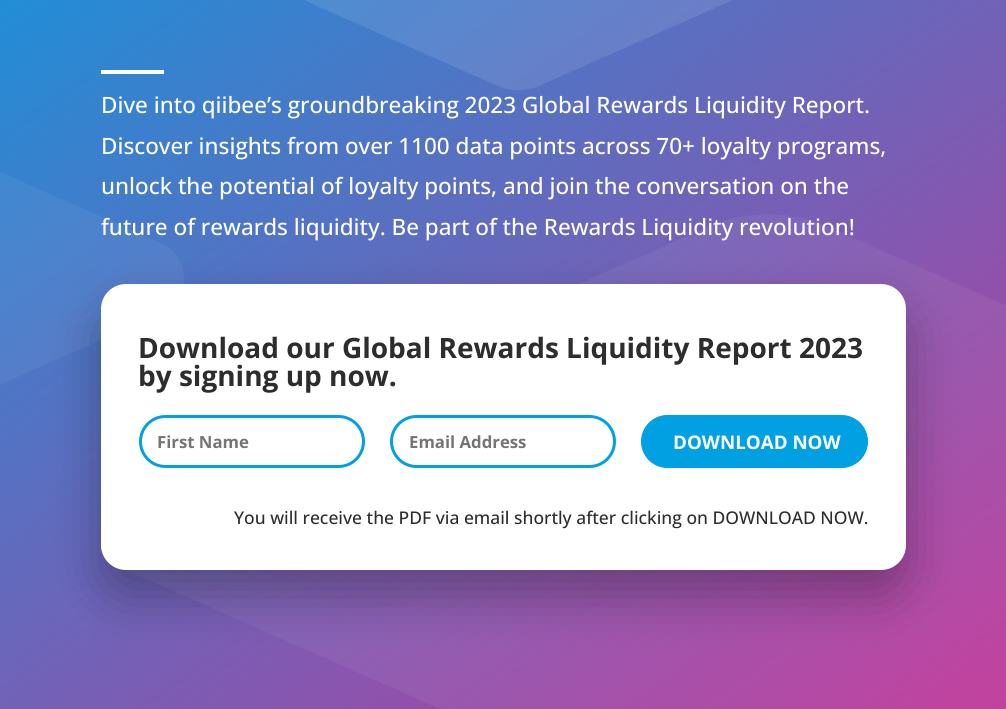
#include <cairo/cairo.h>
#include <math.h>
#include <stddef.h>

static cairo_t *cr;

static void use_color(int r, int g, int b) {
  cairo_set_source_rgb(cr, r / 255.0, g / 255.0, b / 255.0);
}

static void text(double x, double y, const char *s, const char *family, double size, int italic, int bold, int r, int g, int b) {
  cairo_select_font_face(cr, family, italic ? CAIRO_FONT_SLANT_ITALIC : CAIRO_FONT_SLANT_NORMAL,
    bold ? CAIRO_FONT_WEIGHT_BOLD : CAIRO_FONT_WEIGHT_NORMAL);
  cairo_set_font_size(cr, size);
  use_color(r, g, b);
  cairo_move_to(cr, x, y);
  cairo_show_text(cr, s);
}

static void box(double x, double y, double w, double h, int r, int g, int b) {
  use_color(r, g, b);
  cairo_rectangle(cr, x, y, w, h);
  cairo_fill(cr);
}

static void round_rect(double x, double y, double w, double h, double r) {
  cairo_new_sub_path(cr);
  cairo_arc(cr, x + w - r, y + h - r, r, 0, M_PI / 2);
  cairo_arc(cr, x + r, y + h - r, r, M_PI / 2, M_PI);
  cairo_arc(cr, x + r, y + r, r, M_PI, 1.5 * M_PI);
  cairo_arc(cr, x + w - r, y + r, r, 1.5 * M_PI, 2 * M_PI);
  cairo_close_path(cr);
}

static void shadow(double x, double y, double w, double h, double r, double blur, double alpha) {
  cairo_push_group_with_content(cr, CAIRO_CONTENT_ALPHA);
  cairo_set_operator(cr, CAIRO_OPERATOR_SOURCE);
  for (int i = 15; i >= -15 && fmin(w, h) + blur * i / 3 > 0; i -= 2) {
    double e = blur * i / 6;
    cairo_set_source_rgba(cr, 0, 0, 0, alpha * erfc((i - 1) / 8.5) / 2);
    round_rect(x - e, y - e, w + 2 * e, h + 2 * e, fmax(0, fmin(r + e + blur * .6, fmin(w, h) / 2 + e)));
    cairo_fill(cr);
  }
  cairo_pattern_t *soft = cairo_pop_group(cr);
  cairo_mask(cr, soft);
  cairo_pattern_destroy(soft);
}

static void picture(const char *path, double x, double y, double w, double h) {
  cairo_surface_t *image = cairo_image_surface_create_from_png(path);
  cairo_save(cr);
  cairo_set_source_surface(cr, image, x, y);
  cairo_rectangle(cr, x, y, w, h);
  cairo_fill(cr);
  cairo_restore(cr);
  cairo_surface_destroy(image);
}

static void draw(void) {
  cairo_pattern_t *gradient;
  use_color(255, 255, 255);
  cairo_paint(cr);
  gradient = cairo_pattern_create_linear(52, -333, 954, 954);
  cairo_pattern_add_color_stop_rgba(gradient, 0, 0, 0.627, 0.89, 1);
  cairo_pattern_add_color_stop_rgba(gradient, 1, 0.847, 0.165, 0.565, 1);
  cairo_set_source(cr, gradient);
  cairo_pattern_destroy(gradient);
  cairo_rectangle(cr, 0, 0, 1006, 709);
  cairo_fill(cr);
  picture("img_01.png", 0, 0, 1006, 709);
  box(101, 70, 63, 4, 255, 255, 255);
  use_color(0, 0, 0);
  shadow(101, 309, 805, 286, 25, 25, 0.3);
  use_color(255, 255, 255);
  round_rect(101, 284, 805, 286, 25);
  cairo_fill(cr);
  round_rect(140.5, 416.5, 223, 50, 25);
  use_color(0, 160, 227);
  cairo_set_line_width(cr, 3);
  cairo_stroke(cr);
  round_rect(391.5, 416.5, 223, 50, 25);
  cairo_stroke(cr);
  round_rect(641.5, 415.5, 226, 52, 26);
  cairo_fill_preserve(cr);
  cairo_set_line_width(cr, 1);
  cairo_stroke(cr);
  text(101, 113, "Dive into qiibee’s groundbreaking 2023 Global Rewards Liquidity Report.", "Open Sans Medium", 22.5, 0, 0, 255, 255, 255);
  text(101, 154, "Discover insights from over 1100 data points across 70+ loyalty programs,", "Open Sans Medium", 22.5, 0, 0, 255, 255, 255);
  text(101, 194, "unlock the potential of loyalty points, and join the conversation on the", "Open Sans Medium", 22.5, 0, 0, 255, 255, 255);
  text(101, 235, "future of rewards liquidity. Be part of the Rewards Liquidity revolution!", "Open Sans Medium", 22.5, 0, 0, 255, 255, 255);
  text(138, 358, "Download our Global Rewards Liquidity Report 2023", "Open Sans", 28, 0, 1, 45, 45, 45);
  text(138, 386, "by signing up now.", "Open Sans", 28, 0, 1, 45, 45, 45);
  text(157, 448, "First Name", "Open Sans", 16.75, 0, 1, 117, 117, 117);
  text(409, 448, "Email Address", "Open Sans", 16.75, 0, 1, 117, 117, 117);
  text(673, 449, "DOWNLOAD NOW", "Open Sans", 18.75, 0, 1, 255, 255, 255);
  text(234, 524, "You will receive the PDF via email shortly after clicking on DOWNLOAD NOW.", "Open Sans Medium", 17.5, 0, 0, 45, 45, 45);
}

int main(void) {
  cairo_surface_t *surface = cairo_image_surface_create(CAIRO_FORMAT_RGB24, 1006, 709);
  cr = cairo_create(surface);
  cairo_font_options_t *options = cairo_font_options_create();
  cairo_font_options_set_hint_metrics(options, CAIRO_HINT_METRICS_OFF);
  cairo_font_options_set_hint_style(options, CAIRO_HINT_STYLE_NONE);
  cairo_set_font_options(cr, options);
  cairo_set_miter_limit(cr, 4);
  draw();
  cairo_surface_write_to_png(surface, "out.png");
  cairo_font_options_destroy(options);
  cairo_destroy(cr);
  cairo_surface_destroy(surface);
  return 0;
}
